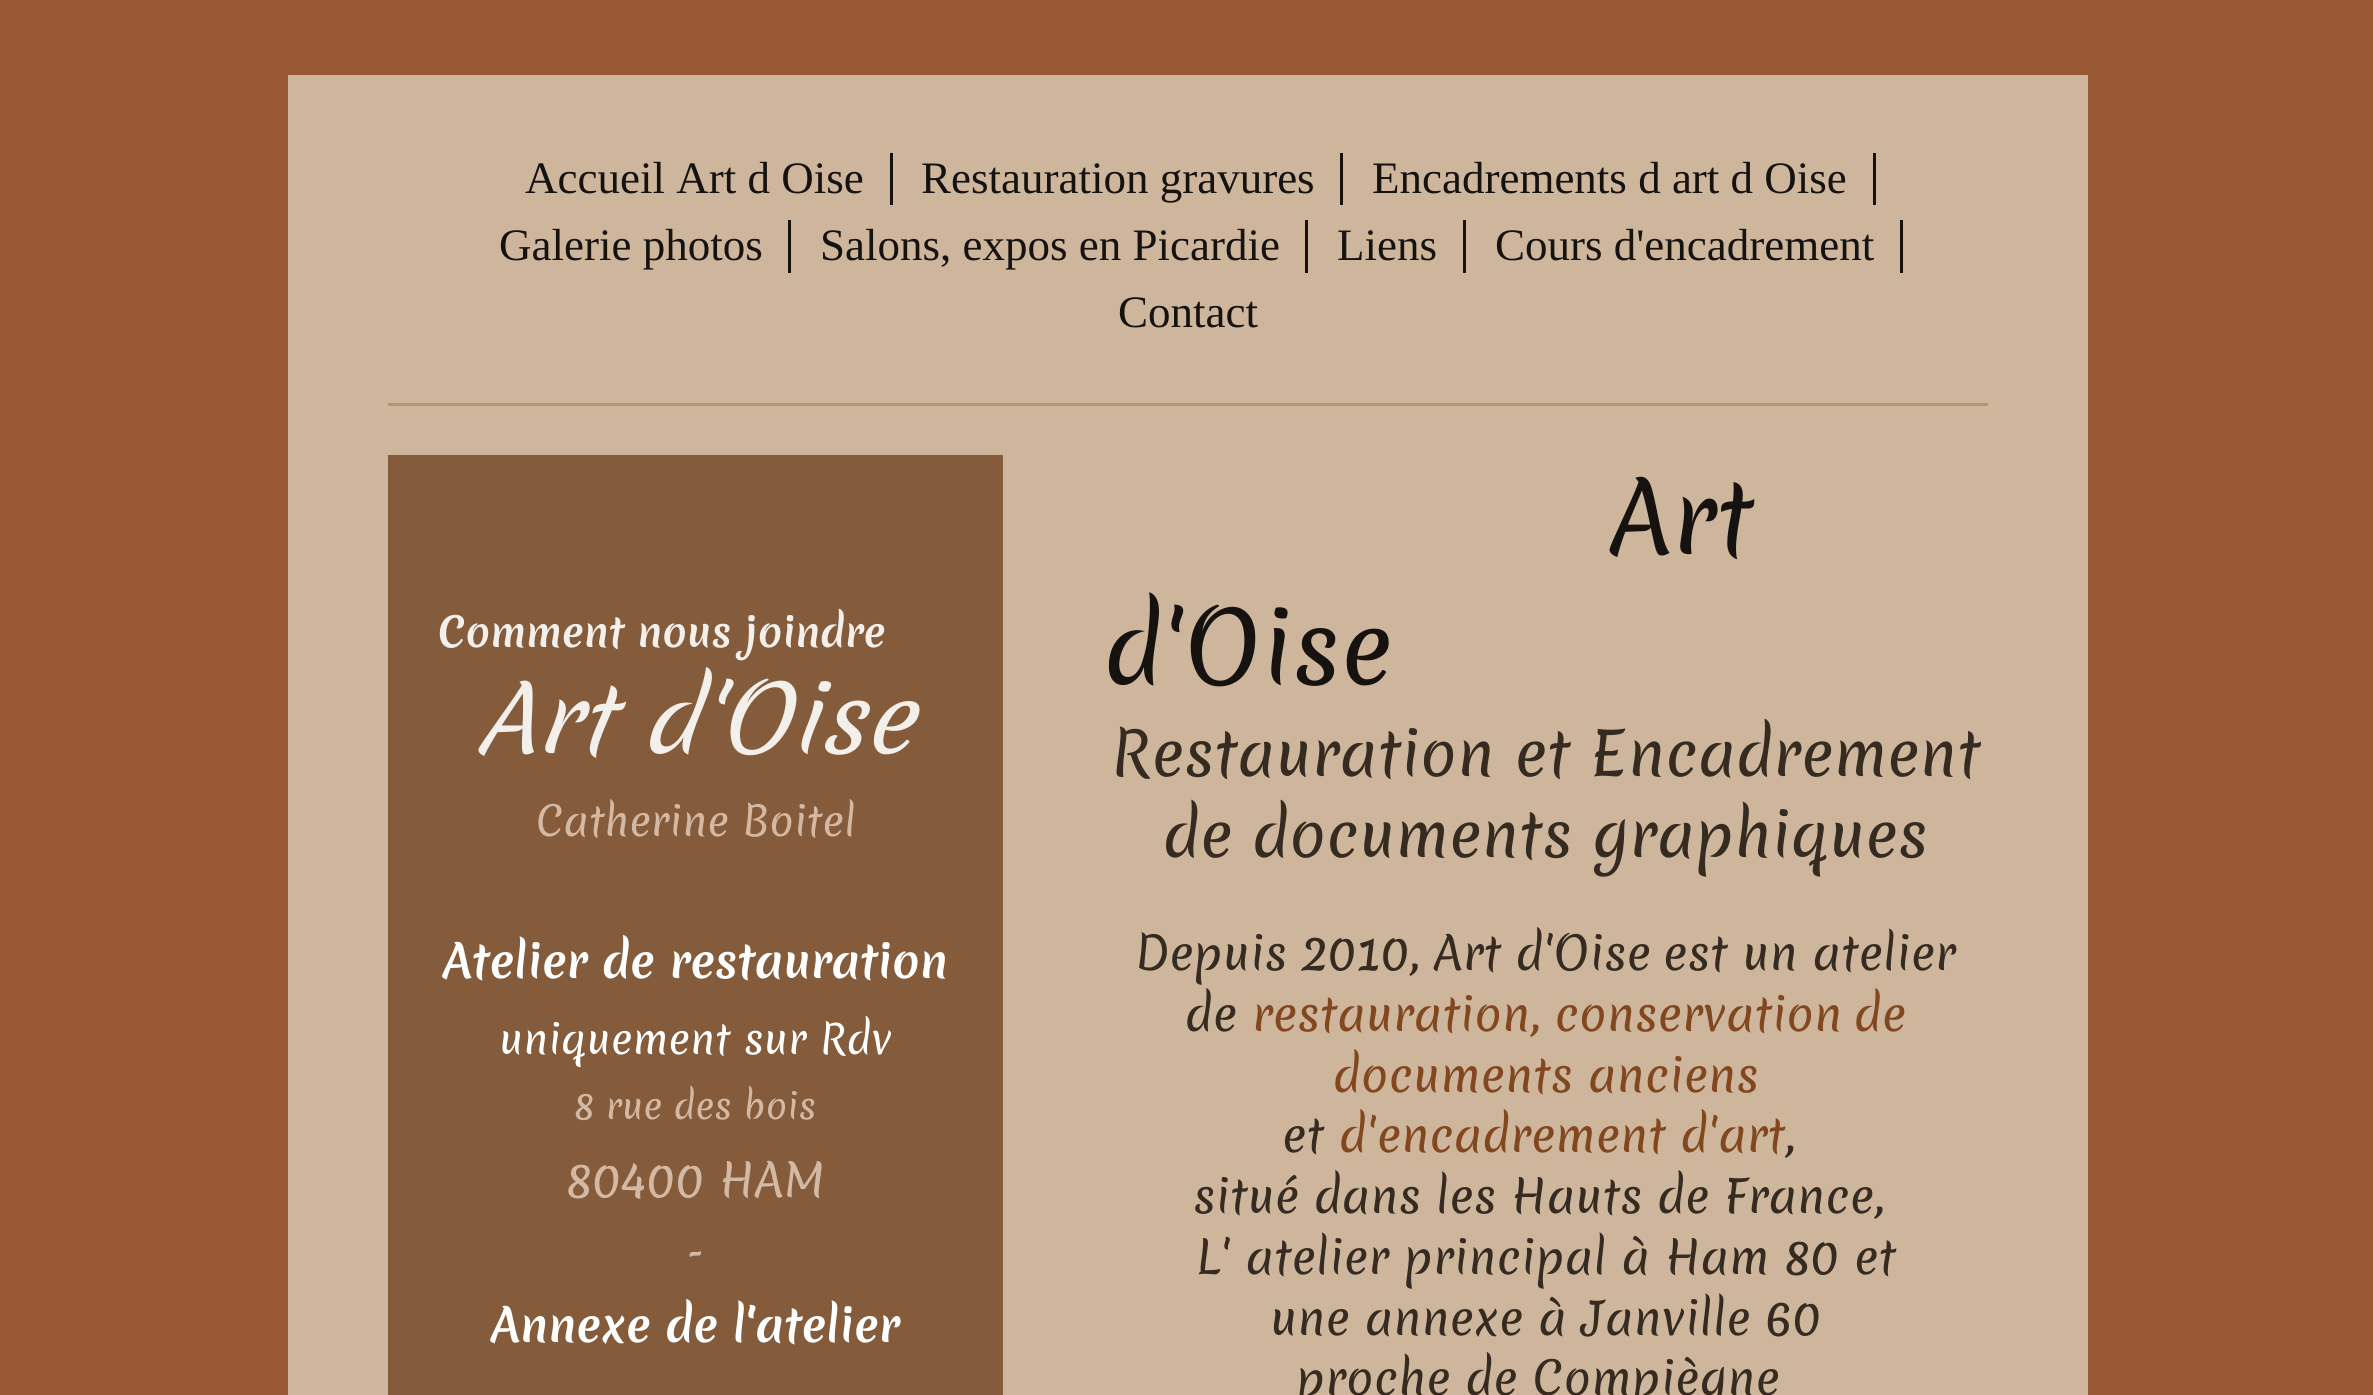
#include <cairo/cairo.h>
#include <math.h>
#include <stddef.h>

static cairo_t *cr;

static void use_color(int r, int g, int b) {
  cairo_set_source_rgb(cr, r / 255.0, g / 255.0, b / 255.0);
}

static void text(double x, double y, const char *s, const char *family, double size, int italic, int bold, int r, int g, int b) {
  cairo_select_font_face(cr, family, italic ? CAIRO_FONT_SLANT_ITALIC : CAIRO_FONT_SLANT_NORMAL,
    bold ? CAIRO_FONT_WEIGHT_BOLD : CAIRO_FONT_WEIGHT_NORMAL);
  cairo_set_font_size(cr, size);
  use_color(r, g, b);
  cairo_move_to(cr, x, y);
  cairo_show_text(cr, s);
}

static void box(double x, double y, double w, double h, int r, int g, int b) {
  use_color(r, g, b);
  cairo_rectangle(cr, x, y, w, h);
  cairo_fill(cr);
}

static void draw(void) {
  use_color(153, 89, 50);
  cairo_paint(cr);
  box(288, 75, 1800, 1320, 205, 182, 156);
  box(388, 403, 1600, 3, 182, 148, 110);
  box(890, 153, 3, 52, 21, 18, 16);
  box(1340, 153, 3, 52, 21, 18, 16);
  box(1873, 153, 3, 52, 21, 18, 16);
  box(788, 220, 3, 53, 21, 18, 16);
  box(1305, 220, 3, 53, 21, 18, 16);
  box(1463, 220, 3, 53, 21, 18, 16);
  box(1900, 220, 3, 53, 21, 18, 16);
  box(388, 455, 615, 940, 132, 91, 59);
  text(525, 193, "Accueil Art d Oise", "Liberation Serif", 45, 0, 0, 21, 18, 16);
  text(921, 193, "Restauration gravures", "Liberation Serif", 45, 0, 0, 21, 18, 16);
  text(1372, 193, "Encadrements d art d Oise", "Liberation Serif", 45, 0, 0, 21, 18, 16);
  text(499, 260, "Galerie photos", "Liberation Serif", 45, 0, 0, 21, 18, 16);
  text(820, 260, "Salons, expos en Picardie", "Liberation Serif", 45, 0, 0, 21, 18, 16);
  text(1337, 260, "Liens", "Liberation Serif", 45, 0, 0, 21, 18, 16);
  text(1495, 260, "Cours d'encadrement", "Liberation Serif", 45, 0, 0, 21, 18, 16);
  text(1118, 327, "Contact", "Liberation Serif", 45, 0, 0, 21, 18, 16);
  text(438, 647, "Comment nous joindre", "Merienda", 40, 0, 1, 243, 239, 235);
  text(478, 753, "Art d'Oise", "Merienda", 90, 1, 0, 243, 239, 235);
  text(536, 836, "Catherine Boitel", "Merienda", 40, 0, 0, 211, 184, 164);
  text(443, 978, "Atelier de restauration", "Merienda", 45, 0, 1, 255, 255, 255);
  text(499, 1054, "uniquement sur Rdv", "Merienda", 40, 0, 0, 255, 255, 255);
  text(574, 1119, "8 rue des bois", "Merienda", 35, 0, 0, 211, 184, 164);
  text(566, 1197, "80400 HAM", "Merienda", 45, 0, 0, 211, 184, 164);
  text(687, 1265, "-", "Merienda", 35, 0, 0, 211, 184, 164);
  text(491, 1342, "Annexe de l'atelier", "Merienda", 45, 0, 1, 255, 255, 255);
  text(1610, 554, "Art", "Merienda", 96, 0, 0, 21, 18, 16);
  text(1104, 684, "d'Oise", "Merienda", 96, 0, 0, 21, 18, 16);
  text(1111, 776, "Restauration et Encadrement", "Merienda", 60, 0, 0, 53, 43, 32);
  text(1163, 857, "de documents graphiques", "Merienda", 60, 0, 0, 53, 43, 32);
  text(1135, 970, "Depuis 2010, Art d'Oise", "Merienda", 45, 0, 0, 53, 43, 32);
  text(1663, 970, "est un atelier", "Merienda", 45, 0, 0, 53, 43, 32);
  text(1185, 1031, "de", "Merienda", 45, 0, 0, 53, 43, 32);
  text(1252, 1031, "restauration, conservation", "Merienda", 45, 0, 0, 130, 71, 31);
  text(1854, 1031, "de", "Merienda", 45, 0, 0, 130, 71, 31);
  text(1333, 1092, "documents anciens", "Merienda", 45, 0, 0, 130, 71, 31);
  text(1282, 1152, "et", "Merienda", 45, 0, 0, 53, 43, 32);
  text(1339, 1152, "d'encadrement d'art", "Merienda", 45, 0, 0, 130, 71, 31);
  text(1785, 1152, ",", "Merienda", 45, 0, 0, 53, 43, 32);
  text(1193, 1213, "situé dans les Hauts de France,", "Merienda", 45, 0, 0, 53, 43, 32);
  text(1196, 1274, "L' atelier principal à Ham 80 et", "Merienda", 45, 0, 0, 53, 43, 32);
  text(1270, 1335, "une annexe à Janville 60", "Merienda", 45, 0, 0, 53, 43, 32);
  text(1296, 1395, "proche de Compiègne", "Merienda", 45, 0, 0, 53, 43, 32);
}

int main(void) {
  cairo_surface_t *surface = cairo_image_surface_create(CAIRO_FORMAT_RGB24, 2373, 1395);
  cr = cairo_create(surface);
  cairo_font_options_t *options = cairo_font_options_create();
  cairo_font_options_set_hint_metrics(options, CAIRO_HINT_METRICS_OFF);
  cairo_font_options_set_hint_style(options, CAIRO_HINT_STYLE_NONE);
  cairo_set_font_options(cr, options);
  cairo_set_miter_limit(cr, 4);
  draw();
  cairo_surface_write_to_png(surface, "out.png");
  cairo_font_options_destroy(options);
  cairo_destroy(cr);
  cairo_surface_destroy(surface);
  return 0;
}
